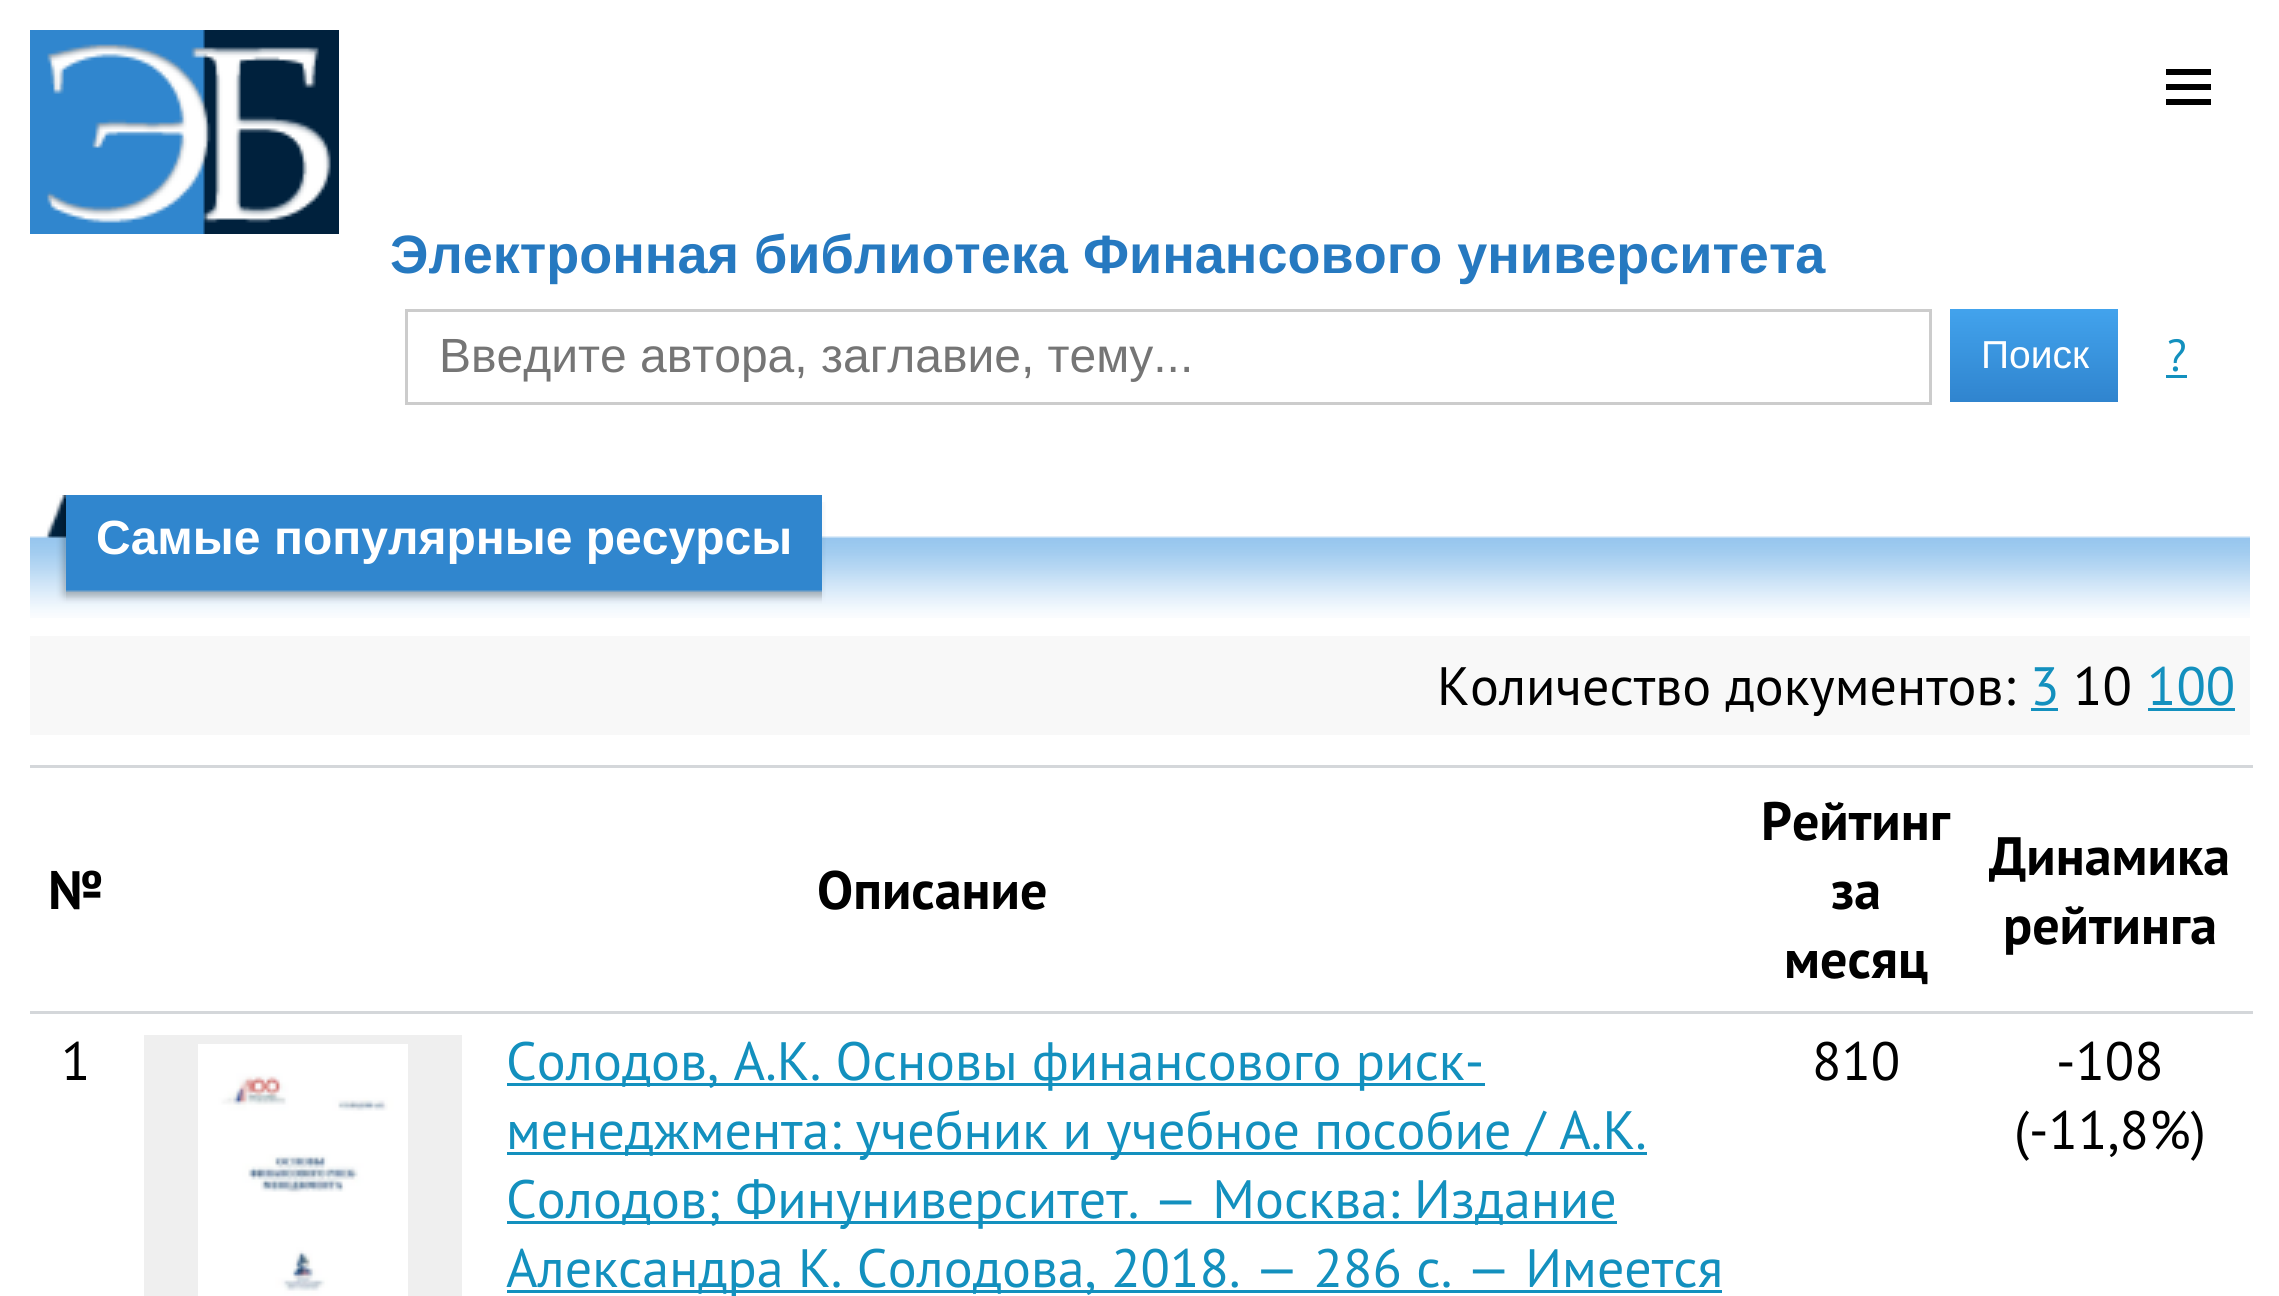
#include <cairo/cairo.h>
#include <math.h>
#include <stddef.h>

static cairo_t *cr;

static void use_color(int r, int g, int b) {
  cairo_set_source_rgb(cr, r / 255.0, g / 255.0, b / 255.0);
}

static void text(double x, double y, const char *s, const char *family, double size, int italic, int bold, int r, int g, int b) {
  cairo_select_font_face(cr, family, italic ? CAIRO_FONT_SLANT_ITALIC : CAIRO_FONT_SLANT_NORMAL,
    bold ? CAIRO_FONT_WEIGHT_BOLD : CAIRO_FONT_WEIGHT_NORMAL);
  cairo_set_font_size(cr, size);
  use_color(r, g, b);
  cairo_move_to(cr, x, y);
  cairo_show_text(cr, s);
}

static void box(double x, double y, double w, double h, int r, int g, int b) {
  use_color(r, g, b);
  cairo_rectangle(cr, x, y, w, h);
  cairo_fill(cr);
}

static void picture(const char *path, double x, double y, double w, double h) {
  cairo_surface_t *image = cairo_image_surface_create_from_png(path);
  cairo_save(cr);
  cairo_set_source_surface(cr, image, x, y);
  cairo_rectangle(cr, x, y, w, h);
  cairo_fill(cr);
  cairo_restore(cr);
  cairo_surface_destroy(image);
}

static void draw(void) {
  cairo_pattern_t *gradient;
  use_color(255, 255, 255);
  cairo_paint(cr);
  picture("img_01.png", 30, 30, 309, 204);
  box(2166, 69, 45, 6, 0, 0, 0);
  box(2166, 84, 45, 6, 0, 0, 0);
  box(2166, 99, 45, 6, 0, 0, 0);
  cairo_rectangle(cr, 406.5, 310.5, 1524, 93);
  use_color(204, 204, 204);
  cairo_set_line_width(cr, 3);
  cairo_stroke(cr);
  gradient = cairo_pattern_create_linear(2034, 309, 2034, 402);
  cairo_pattern_add_color_stop_rgba(gradient, 0, 0.259, 0.639, 0.929, 1);
  cairo_pattern_add_color_stop_rgba(gradient, 1, 0.188, 0.518, 0.808, 1);
  cairo_set_source(cr, gradient);
  cairo_pattern_destroy(gradient);
  cairo_rectangle(cr, 1950, 309, 168, 93);
  cairo_fill(cr);
  box(2166, 375, 21, 3, 19, 144, 190);
  picture("img_02.png", 30, 495, 36, 123);
  picture("img_03.png", 66, 495, 756, 123);
  picture("img_04.png", 822, 502, 6, 116);
  picture("img_05.png", 828, 536, 1422, 82);
  box(30, 636, 2220, 99, 248, 248, 248);
  box(2031, 708, 27, 3, 19, 144, 190);
  box(2148, 708, 87, 3, 19, 144, 190);
  box(30, 765, 2223, 3, 212, 215, 218);
  box(144, 1035, 318, 261, 239, 239, 239);
  picture("img_06.png", 198, 1044, 210, 252);
  box(507, 1083, 978, 3, 19, 144, 190);
  box(507, 1152, 1140, 3, 19, 144, 190);
  box(507, 1221, 1110, 3, 19, 144, 190);
  box(507, 1290, 1215, 3, 19, 144, 190);
  box(30, 1011, 2223, 3, 212, 215, 218);
  text(390, 273, "Электронная библиотека Финансового университета", "Liberation Sans", 54, 0, 1, 38, 121, 192);
  text(439, 372, "Введите автора, заглавие, тему...", "Liberation Sans", 48, 0, 0, 117, 117, 117);
  text(1981, 368, "Поиск", "Liberation Sans", 39, 0, 0, 255, 255, 255);
  text(2167, 371, "?", "PT Sans", 45, 0, 0, 19, 144, 190);
  text(96, 554, "Самые популярные ресурсы", "Liberation Sans", 48, 0, 1, 255, 255, 255);
  text(1437, 705, "Количество документов:", "PT Sans", 54, 0, 0, 0, 0, 0);
  text(2030, 705, "3", "PT Sans", 54, 0, 0, 19, 144, 190);
  text(2073, 705, "10", "PT Sans", 54, 0, 0, 0, 0, 0);
  text(2147, 705, "100", "PT Sans", 54, 0, 0, 19, 144, 190);
  text(48, 909, "№", "PT Sans", 54, 0, 1, 0, 0, 0);
  text(817, 909, "Описание", "PT Sans", 54, 0, 1, 0, 0, 0);
  text(1761, 840, "Рейтинг", "PT Sans", 54, 0, 1, 0, 0, 0);
  text(1831, 909, "за", "PT Sans", 54, 0, 1, 0, 0, 0);
  text(1784, 978, "месяц", "PT Sans", 54, 0, 1, 0, 0, 0);
  text(1989, 875, "Динамика", "PT Sans", 54, 0, 1, 0, 0, 0);
  text(2003, 944, "рейтинга", "PT Sans", 54, 0, 1, 0, 0, 0);
  text(61, 1080, "1", "PT Sans", 54, 0, 0, 0, 0, 0);
  text(506, 1080, "Солодов, А.К. Основы финансового риск-", "PT Sans", 54, 0, 0, 19, 144, 190);
  text(506, 1149, "менеджмента: учебник и учебное пособие / А.К.", "PT Sans", 54, 0, 0, 19, 144, 190);
  text(506, 1218, "Солодов; Финуниверситет. — Москва: Издание", "PT Sans", 54, 0, 0, 19, 144, 190);
  text(506, 1287, "Александра К. Солодова, 2018. — 286 с. — Имеется", "PT Sans", 54, 0, 0, 19, 144, 190);
  text(1812, 1080, "810", "PT Sans", 54, 0, 0, 0, 0, 0);
  text(2056, 1080, "-108", "PT Sans", 54, 0, 0, 0, 0, 0);
  text(2014, 1149, "(-11,8%)", "PT Sans", 54, 0, 0, 0, 0, 0);
}

int main(void) {
  cairo_surface_t *surface = cairo_image_surface_create(CAIRO_FORMAT_RGB24, 2279, 1296);
  cr = cairo_create(surface);
  cairo_font_options_t *options = cairo_font_options_create();
  cairo_font_options_set_hint_metrics(options, CAIRO_HINT_METRICS_OFF);
  cairo_font_options_set_hint_style(options, CAIRO_HINT_STYLE_NONE);
  cairo_set_font_options(cr, options);
  cairo_set_miter_limit(cr, 4);
  draw();
  cairo_surface_write_to_png(surface, "out.png");
  cairo_font_options_destroy(options);
  cairo_destroy(cr);
  cairo_surface_destroy(surface);
  return 0;
}
